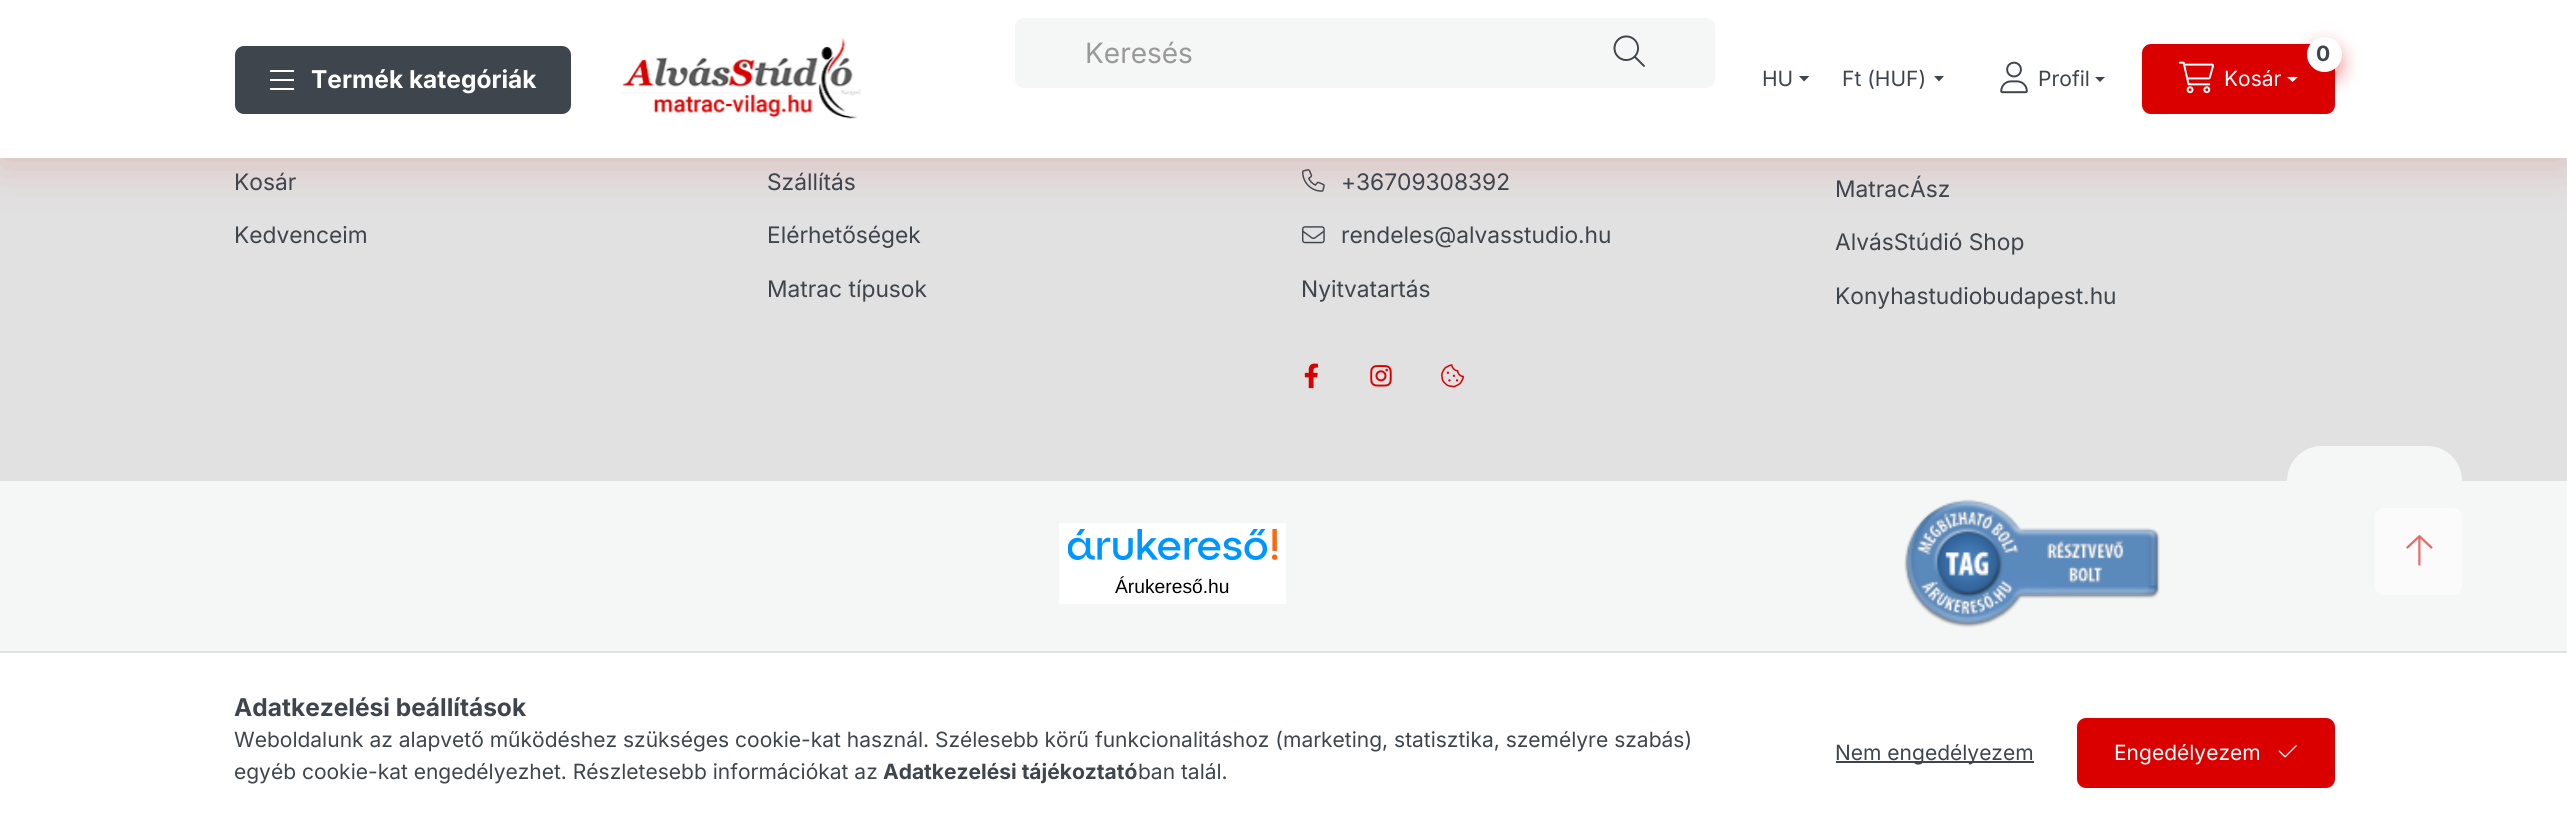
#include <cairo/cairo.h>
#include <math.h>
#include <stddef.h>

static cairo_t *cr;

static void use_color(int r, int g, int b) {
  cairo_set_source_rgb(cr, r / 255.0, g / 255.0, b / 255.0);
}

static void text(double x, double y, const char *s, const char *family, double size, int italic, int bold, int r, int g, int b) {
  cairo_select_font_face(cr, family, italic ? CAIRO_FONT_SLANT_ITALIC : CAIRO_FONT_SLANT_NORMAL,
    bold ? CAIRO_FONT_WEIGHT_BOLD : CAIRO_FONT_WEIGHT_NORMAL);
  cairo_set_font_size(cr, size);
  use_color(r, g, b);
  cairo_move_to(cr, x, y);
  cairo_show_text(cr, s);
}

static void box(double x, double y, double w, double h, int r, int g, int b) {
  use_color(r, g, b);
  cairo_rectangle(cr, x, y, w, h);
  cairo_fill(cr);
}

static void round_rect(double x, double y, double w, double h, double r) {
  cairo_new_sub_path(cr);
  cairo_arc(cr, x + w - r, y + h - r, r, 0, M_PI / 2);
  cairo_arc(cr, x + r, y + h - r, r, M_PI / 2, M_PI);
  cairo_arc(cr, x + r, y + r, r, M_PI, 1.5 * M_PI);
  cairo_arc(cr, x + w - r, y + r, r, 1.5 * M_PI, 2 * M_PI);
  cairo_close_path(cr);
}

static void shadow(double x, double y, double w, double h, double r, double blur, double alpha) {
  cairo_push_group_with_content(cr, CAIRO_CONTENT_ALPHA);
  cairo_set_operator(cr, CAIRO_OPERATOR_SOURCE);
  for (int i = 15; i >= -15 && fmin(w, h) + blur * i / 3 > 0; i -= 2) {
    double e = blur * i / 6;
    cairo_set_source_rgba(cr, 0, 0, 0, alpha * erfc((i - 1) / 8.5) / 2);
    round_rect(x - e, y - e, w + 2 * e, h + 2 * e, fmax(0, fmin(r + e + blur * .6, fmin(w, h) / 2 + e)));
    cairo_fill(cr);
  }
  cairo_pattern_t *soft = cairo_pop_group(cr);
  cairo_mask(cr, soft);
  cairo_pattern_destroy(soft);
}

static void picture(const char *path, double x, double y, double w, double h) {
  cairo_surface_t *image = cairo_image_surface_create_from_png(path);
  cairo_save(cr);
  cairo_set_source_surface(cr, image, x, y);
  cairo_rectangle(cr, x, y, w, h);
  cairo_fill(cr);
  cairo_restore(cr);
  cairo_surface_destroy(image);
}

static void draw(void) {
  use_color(245, 246, 246);
  cairo_paint(cr);
  box(0, 158, 2567, 323, 225, 225, 225);
  picture("img_05.png", 1302, 169, 23, 23);
  picture("img_06.png", 1302, 226, 23, 18);
  use_color(218, 0, 0);
  shadow(0, 0, 2567, 158, 0, 26, 0.2);
  box(0, 0, 2567, 158, 255, 255, 255);
  use_color(62, 69, 76);
  round_rect(235, 46, 336, 68, 9);
  cairo_fill(cr);
  box(270, 70, 24, 2, 255, 255, 255);
  box(270, 79, 24, 2, 255, 255, 255);
  box(270, 88, 24, 2, 255, 255, 255);
  picture("img_01.png", 622, 37, 239, 82);
  use_color(245, 246, 246);
  round_rect(1015, 18, 700, 70, 9);
  cairo_fill(cr);
  picture("img_02.png", 1613, 35, 32, 32);
  use_color(62, 69, 76);
  cairo_new_path(cr);
  cairo_move_to(cr, 1799, 76);
  cairo_line_to(cr, 1809.5, 76);
  cairo_line_to(cr, 1804, 81.5);
  cairo_close_path(cr);
  cairo_fill(cr);
  cairo_new_path(cr);
  cairo_move_to(cr, 1934, 76);
  cairo_line_to(cr, 1944, 76);
  cairo_line_to(cr, 1939, 81.5);
  cairo_close_path(cr);
  cairo_fill(cr);
  picture("img_03.png", 2000, 61, 28, 33);
  cairo_new_path(cr);
  cairo_move_to(cr, 2095, 77);
  cairo_line_to(cr, 2105, 77);
  cairo_line_to(cr, 2100, 82);
  cairo_close_path(cr);
  cairo_fill(cr);
  use_color(218, 0, 0);
  round_rect(2142, 44, 193, 70, 9);
  cairo_fill(cr);
  use_color(218, 0, 0);
  shadow(2307, 46, 35, 35, 17.5, 9, 0.4);
  use_color(255, 255, 255);
  cairo_arc(cr, 2324.5, 54.5, 17.5, 0, 2 * M_PI);
  cairo_fill(cr);
  picture("img_04.png", 2178, 61, 36, 33);
  cairo_new_path(cr);
  cairo_move_to(cr, 2287, 77);
  cairo_line_to(cr, 2298, 77);
  cairo_line_to(cr, 2292.5, 82);
  cairo_close_path(cr);
  cairo_fill(cr);
  picture("img_07.png", 1304, 363, 14, 26);
  picture("img_08.png", 1370, 365, 22, 22);
  picture("img_09.png", 1441, 364, 23, 24);
  use_color(245, 246, 246);
  cairo_new_path(cr);
  cairo_move_to(cr, 2322, 446);
  cairo_line_to(cr, 2427, 446);
  cairo_curve_to(cr, 2446.5, 446, 2462, 461.5, 2462, 481);
  cairo_line_to(cr, 2287, 481);
  cairo_curve_to(cr, 2287, 461.5, 2302.5, 446, 2322, 446);
  cairo_close_path(cr);
  cairo_fill(cr);
  box(1059, 523, 227, 81, 255, 255, 255);
  picture("img_10.png", 1068, 529, 210, 32);
  picture("img_11.png", 1904, 499, 256, 129);
  use_color(251, 251, 251);
  round_rect(2375, 508, 87, 87, 9);
  cairo_fill(cr);
  picture("img_12.png", 2406, 535, 27, 31);
  box(0, 653, 2567, 168, 255, 255, 255);
  box(0, 651, 2567, 2, 225, 225, 225);
  box(1836, 761, 198, 2, 62, 69, 76);
  use_color(218, 0, 0);
  round_rect(2078, 719, 256, 68, 8);
  cairo_fill_preserve(cr);
  cairo_stroke(cr);
  picture("img_13.png", 2278, 745, 19, 13);
  text(311, 88, "Termék kategóriák", "Inter", 24.5, 0, 1, 255, 255, 255);
  text(1085, 63, "Keresés", "Inter", 28, 0, 0, 153, 153, 153);
  text(1762, 86, "HU", "Inter", 21, 0, 0, 62, 69, 76);
  text(1842, 86, "Ft (HUF)", "Inter", 21, 0, 0, 62, 69, 76);
  text(2038, 86, "Profil", "Inter", 21, 0, 0, 62, 69, 76);
  text(2316, 61, "0", "Inter", 21, 0, 1, 62, 69, 76);
  text(2224, 86, "Kosár", "Inter", 21, 0, 0, 255, 255, 255);
  text(234, 190, "Kosár", "Inter", 22.75, 0, 0, 62, 69, 76);
  text(234, 243, "Kedvenceim", "Inter", 22.75, 0, 0, 62, 69, 76);
  text(767, 190, "Szállítás", "Inter", 22.75, 0, 0, 62, 69, 76);
  text(767, 243, "Elérhetőségek", "Inter", 22.75, 0, 0, 62, 69, 76);
  text(767, 297, "Matrac típusok", "Inter", 22.75, 0, 0, 62, 69, 76);
  text(1341, 190, "+36709308392", "Inter", 22.75, 0, 0, 62, 69, 76);
  text(1341, 243, "rendeles@alvasstudio.hu", "Inter", 22.75, 0, 0, 62, 69, 76);
  text(1301, 297, "Nyitvatartás", "Inter", 22.75, 0, 0, 62, 69, 76);
  text(1835, 197, "MatracÁsz", "Inter", 22.75, 0, 0, 62, 69, 76);
  text(1835, 250, "AlvásStúdió Shop", "Inter", 22.75, 0, 0, 62, 69, 76);
  text(1835, 304, "Konyhastudiobudapest.hu", "Inter", 22.75, 0, 0, 62, 69, 76);
  text(1115, 593, "Árukereső.hu", "Liberation Sans", 19.25, 0, 0, 0, 0, 0);
  text(234, 716, "Adatkezelési beállítások", "Inter", 24.5, 0, 1, 62, 69, 76);
  text(234, 747, "Weboldalunk az alapvető működéshez szükséges cookie-kat használ. Szélesebb körű funkcionalitáshoz (marketing, statisztika, személyre szabás)", "Inter", 21, 0, 0, 62, 69, 76);
  text(234, 779, "egyéb cookie-kat engedélyezhet. Részletesebb információkat az", "Inter", 21, 0, 0, 62, 69, 76);
  text(883, 779, "Adatkezelési tájékoztató", "Inter", 21, 0, 1, 62, 69, 76);
  text(1138, 779, "ban talál.", "Inter", 21, 0, 0, 62, 69, 76);
  text(1835, 760, "Nem engedélyezem", "Inter", 21, 0, 0, 62, 69, 76);
  text(2114, 760, "Engedélyezem", "Inter", 21, 0, 0, 255, 255, 255);
}

int main(void) {
  cairo_surface_t *surface = cairo_image_surface_create(CAIRO_FORMAT_RGB24, 2567, 821);
  cr = cairo_create(surface);
  cairo_font_options_t *options = cairo_font_options_create();
  cairo_font_options_set_hint_metrics(options, CAIRO_HINT_METRICS_OFF);
  cairo_font_options_set_hint_style(options, CAIRO_HINT_STYLE_NONE);
  cairo_set_font_options(cr, options);
  cairo_set_miter_limit(cr, 4);
  draw();
  cairo_surface_write_to_png(surface, "out.png");
  cairo_font_options_destroy(options);
  cairo_destroy(cr);
  cairo_surface_destroy(surface);
  return 0;
}
